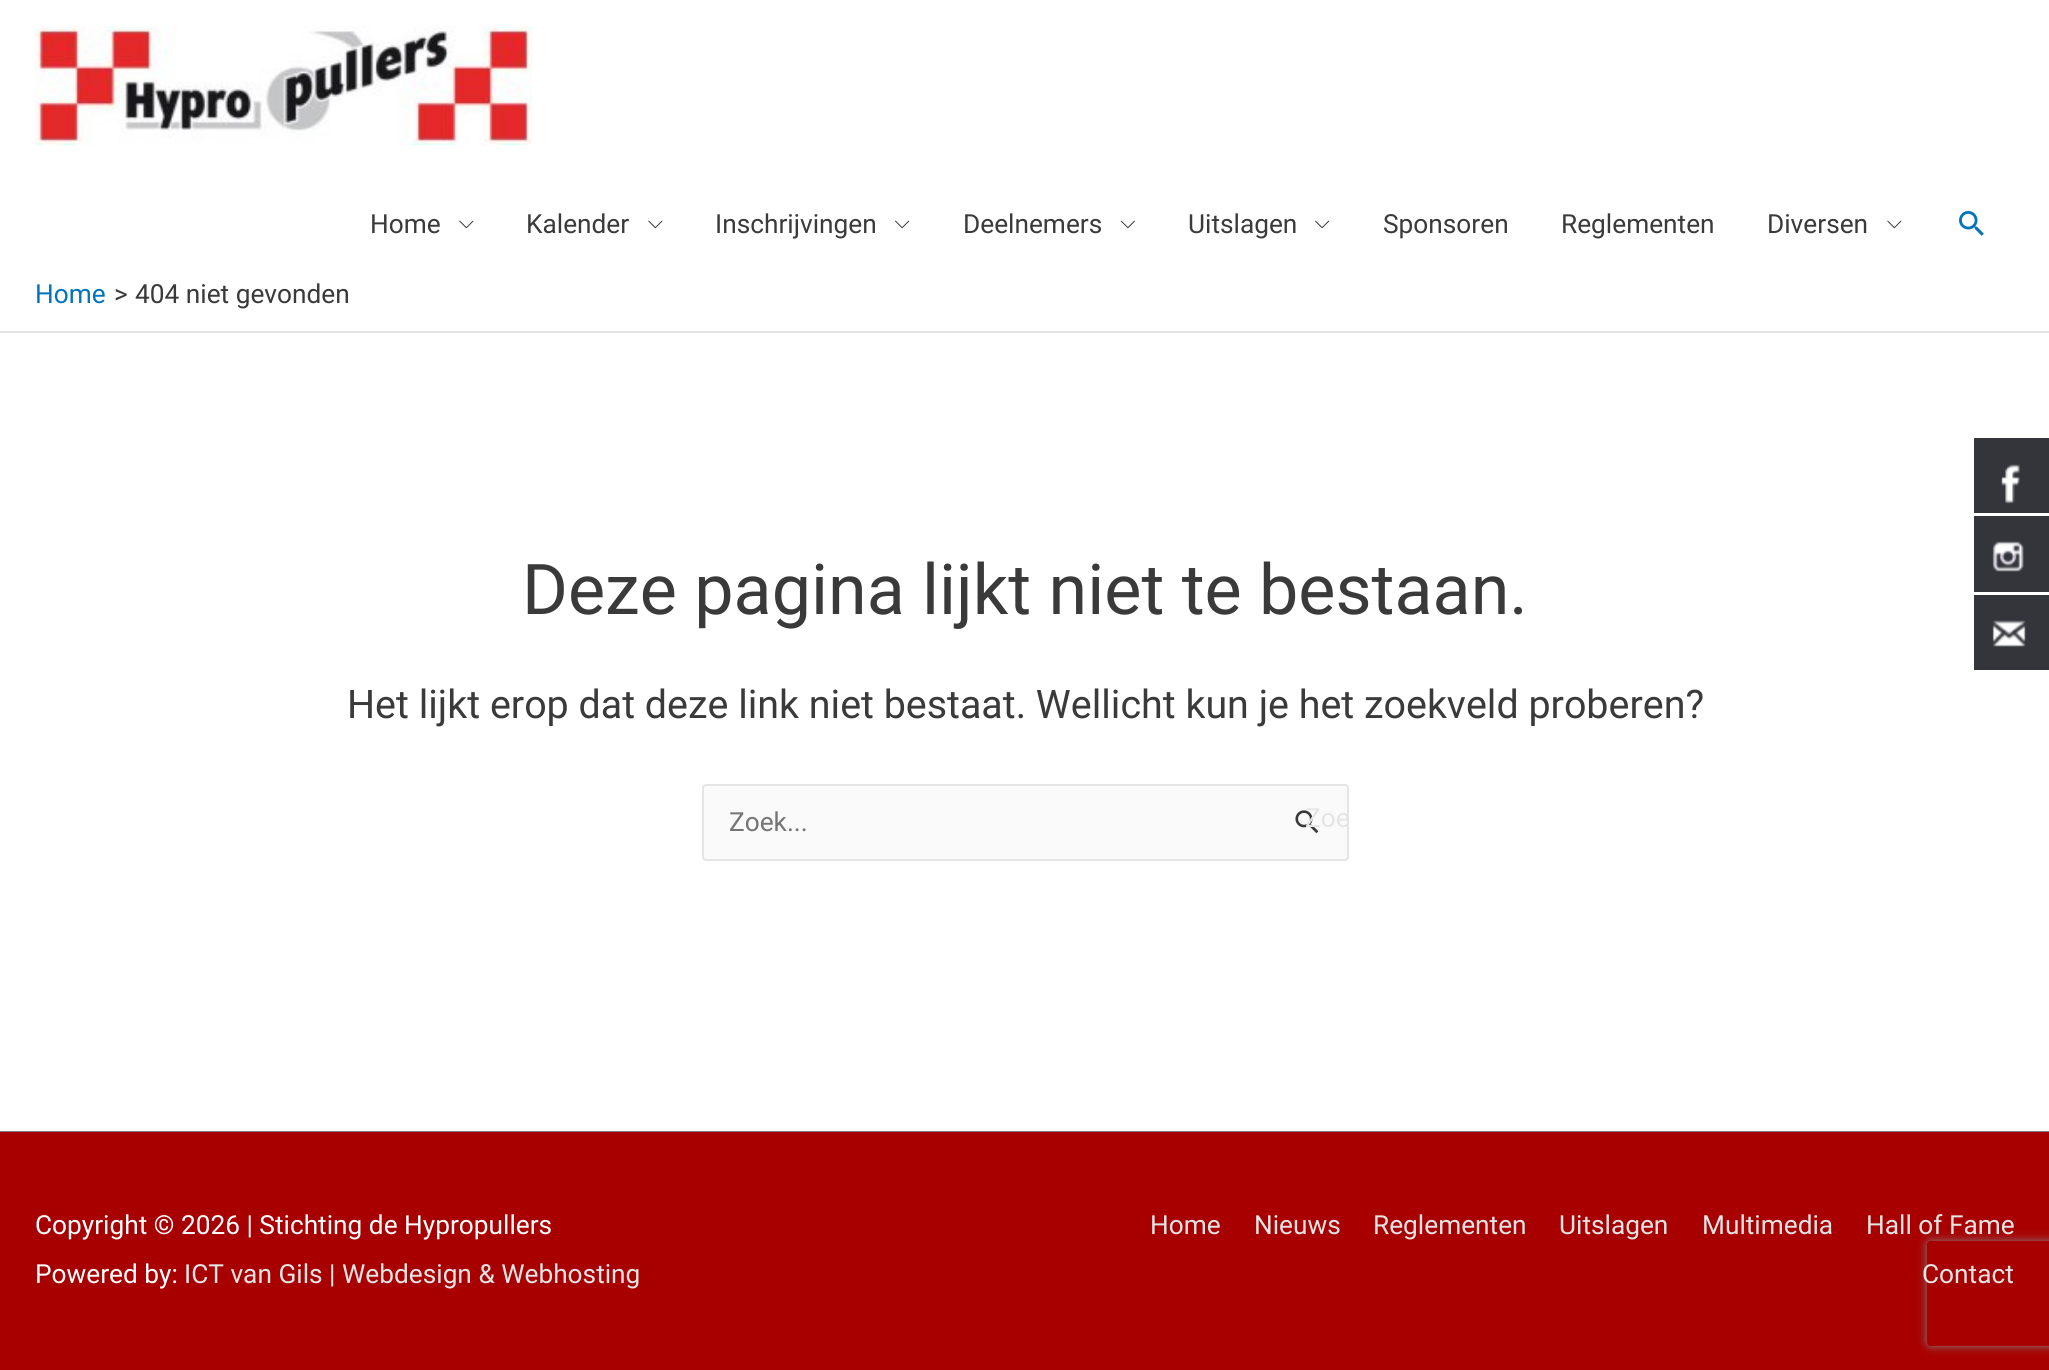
#include <cairo/cairo.h>
#include <math.h>
#include <stddef.h>

static cairo_t *cr;

static void use_color(int r, int g, int b) {
  cairo_set_source_rgb(cr, r / 255.0, g / 255.0, b / 255.0);
}

static void text(double x, double y, const char *s, const char *family, double size, int italic, int bold, int r, int g, int b) {
  cairo_select_font_face(cr, family, italic ? CAIRO_FONT_SLANT_ITALIC : CAIRO_FONT_SLANT_NORMAL,
    bold ? CAIRO_FONT_WEIGHT_BOLD : CAIRO_FONT_WEIGHT_NORMAL);
  cairo_set_font_size(cr, size);
  use_color(r, g, b);
  cairo_move_to(cr, x, y);
  cairo_show_text(cr, s);
}

static void box(double x, double y, double w, double h, int r, int g, int b) {
  use_color(r, g, b);
  cairo_rectangle(cr, x, y, w, h);
  cairo_fill(cr);
}

static void round_rect(double x, double y, double w, double h, double r) {
  cairo_new_sub_path(cr);
  cairo_arc(cr, x + w - r, y + h - r, r, 0, M_PI / 2);
  cairo_arc(cr, x + r, y + h - r, r, M_PI / 2, M_PI);
  cairo_arc(cr, x + r, y + r, r, M_PI, 1.5 * M_PI);
  cairo_arc(cr, x + w - r, y + r, r, 1.5 * M_PI, 2 * M_PI);
  cairo_close_path(cr);
}

static void shadow(double x, double y, double w, double h, double r, double blur, double alpha) {
  cairo_push_group_with_content(cr, CAIRO_CONTENT_ALPHA);
  cairo_set_operator(cr, CAIRO_OPERATOR_SOURCE);
  for (int i = 15; i >= -15 && fmin(w, h) + blur * i / 3 > 0; i -= 2) {
    double e = blur * i / 6;
    cairo_set_source_rgba(cr, 0, 0, 0, alpha * erfc((i - 1) / 8.5) / 2);
    round_rect(x - e, y - e, w + 2 * e, h + 2 * e, fmax(0, fmin(r + e + blur * .6, fmin(w, h) / 2 + e)));
    cairo_fill(cr);
  }
  cairo_pattern_t *soft = cairo_pop_group(cr);
  cairo_mask(cr, soft);
  cairo_pattern_destroy(soft);
}

static void picture(const char *path, double x, double y, double w, double h) {
  cairo_surface_t *image = cairo_image_surface_create_from_png(path);
  cairo_save(cr);
  cairo_set_source_surface(cr, image, x, y);
  cairo_rectangle(cr, x, y, w, h);
  cairo_fill(cr);
  cairo_restore(cr);
  cairo_surface_destroy(image);
}

static void draw(void) {
  use_color(255, 255, 255);
  cairo_paint(cr);
  box(0, 331, 2049, 2, 229, 229, 229);
  picture("img_01.png", 35, 26, 497, 120);
  picture("img_02.png", 459, 220, 15, 9);
  picture("img_02.png", 648, 220, 15, 9);
  picture("img_03.png", 895, 220, 15, 9);
  picture("img_04.png", 1120, 220, 15, 9);
  picture("img_03.png", 1315, 220, 15, 9);
  picture("img_02.png", 1887, 220, 15, 9);
  picture("img_05.png", 1959, 211, 25, 25);
  use_color(250, 250, 250);
  round_rect(703, 785, 645, 75, 3);
  cairo_fill_preserve(cr);
  use_color(229, 229, 229);
  cairo_stroke(cr);
  picture("img_06.png", 1295, 810, 24, 24);
  box(0, 1131, 2049, 1, 122, 122, 122);
  box(0, 1132, 2049, 238, 168, 0, 0);
  box(1974, 438, 75, 75, 51, 53, 59);
  picture("img_07.png", 2001, 464, 19, 40);
  box(1974, 516, 75, 76, 51, 53, 59);
  picture("img_08.png", 1992, 541, 32, 31);
  box(1974, 595, 75, 75, 51, 53, 59);
  picture("img_09.png", 1992, 620, 34, 27);
  cairo_save(cr);
  cairo_set_fill_rule(cr, CAIRO_FILL_RULE_EVEN_ODD);
  cairo_new_path(cr);
  cairo_move_to(cr, 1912, 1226);
  cairo_line_to(cr, 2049, 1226);
  cairo_line_to(cr, 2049, 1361);
  cairo_line_to(cr, 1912, 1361);
  cairo_close_path(cr);
  cairo_move_to(cr, 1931, 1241);
  cairo_line_to(cr, 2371, 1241);
  cairo_curve_to(cr, 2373, 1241, 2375, 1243, 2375, 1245);
  cairo_line_to(cr, 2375, 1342);
  cairo_curve_to(cr, 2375, 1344, 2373, 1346, 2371, 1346);
  cairo_line_to(cr, 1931, 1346);
  cairo_curve_to(cr, 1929, 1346, 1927, 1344, 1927, 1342);
  cairo_line_to(cr, 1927, 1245);
  cairo_curve_to(cr, 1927, 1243, 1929, 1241, 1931, 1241);
  cairo_close_path(cr);
  cairo_clip(cr);
  use_color(128, 128, 128);
  shadow(1927, 1241, 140, 105, 4, 4.5, 1);
  cairo_restore(cr);
  text(370, 233, "Home", "Roboto", 26.25, 0, 0, 58, 58, 58);
  text(526, 233, "Kalender", "Roboto", 26.25, 0, 0, 58, 58, 58);
  text(715, 233, "Inschrijvingen", "Roboto", 26.25, 0, 0, 58, 58, 58);
  text(963, 233, "Deelnemers", "Roboto", 26.25, 0, 0, 58, 58, 58);
  text(1188, 233, "Uitslagen", "Roboto", 26.25, 0, 0, 58, 58, 58);
  text(1383, 233, "Sponsoren", "Roboto", 26.25, 0, 0, 58, 58, 58);
  text(1561, 233, "Reglementen", "Roboto", 26.25, 0, 0, 58, 58, 58);
  text(1767, 233, "Diversen", "Roboto", 26.25, 0, 0, 58, 58, 58);
  text(35, 303, "Home", "Roboto", 26.25, 0, 0, 2, 116, 190);
  text(114, 303, ">", "Roboto", 26.25, 0, 0, 58, 58, 58);
  text(135, 303, "404 niet gevonden", "Roboto", 26.25, 0, 0, 58, 58, 58);
  text(522, 614, "Deze pagina lijkt niet te bestaan.", "Roboto", 70, 0, 0, 58, 58, 58);
  text(347, 718, "Het lijkt erop dat deze link niet bestaat. Wellicht kun je het zoekveld proberen?", "Roboto", 39.4, 0, 0, 58, 58, 58);
  text(1305, 827, "Zoe", "Roboto", 26.25, 0, 0, 229, 229, 229);
  text(729, 831, "Zoek...", "Roboto", 26.25, 0, 0, 117, 117, 117);
  text(35, 1234, "Copyright © 2026 | Stichting de Hypropullers", "Roboto", 26.25, 0, 0, 255, 255, 255);
  text(35, 1283, "Powered by:", "Roboto", 26.25, 0, 0, 255, 255, 255);
  text(184, 1283, "ICT van Gils | Webdesign & Webhosting", "Roboto", 26.25, 0, 0, 229, 229, 229);
  text(1150, 1234, "Home", "Roboto", 26.25, 0, 0, 229, 229, 229);
  text(1254, 1234, "Nieuws", "Roboto", 26.25, 0, 0, 229, 229, 229);
  text(1373, 1234, "Reglementen", "Roboto", 26.25, 0, 0, 229, 229, 229);
  text(1559, 1234, "Uitslagen", "Roboto", 26.25, 0, 0, 229, 229, 229);
  text(1702, 1234, "Multimedia", "Roboto", 26.25, 0, 0, 229, 229, 229);
  text(1866, 1234, "Hall of Fame", "Roboto", 26.25, 0, 0, 229, 229, 229);
  text(1922, 1283, "Contact", "Roboto", 26.25, 0, 0, 229, 229, 229);
}

int main(void) {
  cairo_surface_t *surface = cairo_image_surface_create(CAIRO_FORMAT_RGB24, 2049, 1370);
  cr = cairo_create(surface);
  cairo_font_options_t *options = cairo_font_options_create();
  cairo_font_options_set_hint_metrics(options, CAIRO_HINT_METRICS_OFF);
  cairo_font_options_set_hint_style(options, CAIRO_HINT_STYLE_NONE);
  cairo_set_font_options(cr, options);
  cairo_set_miter_limit(cr, 4);
  draw();
  cairo_surface_write_to_png(surface, "out.png");
  cairo_font_options_destroy(options);
  cairo_destroy(cr);
  cairo_surface_destroy(surface);
  return 0;
}
